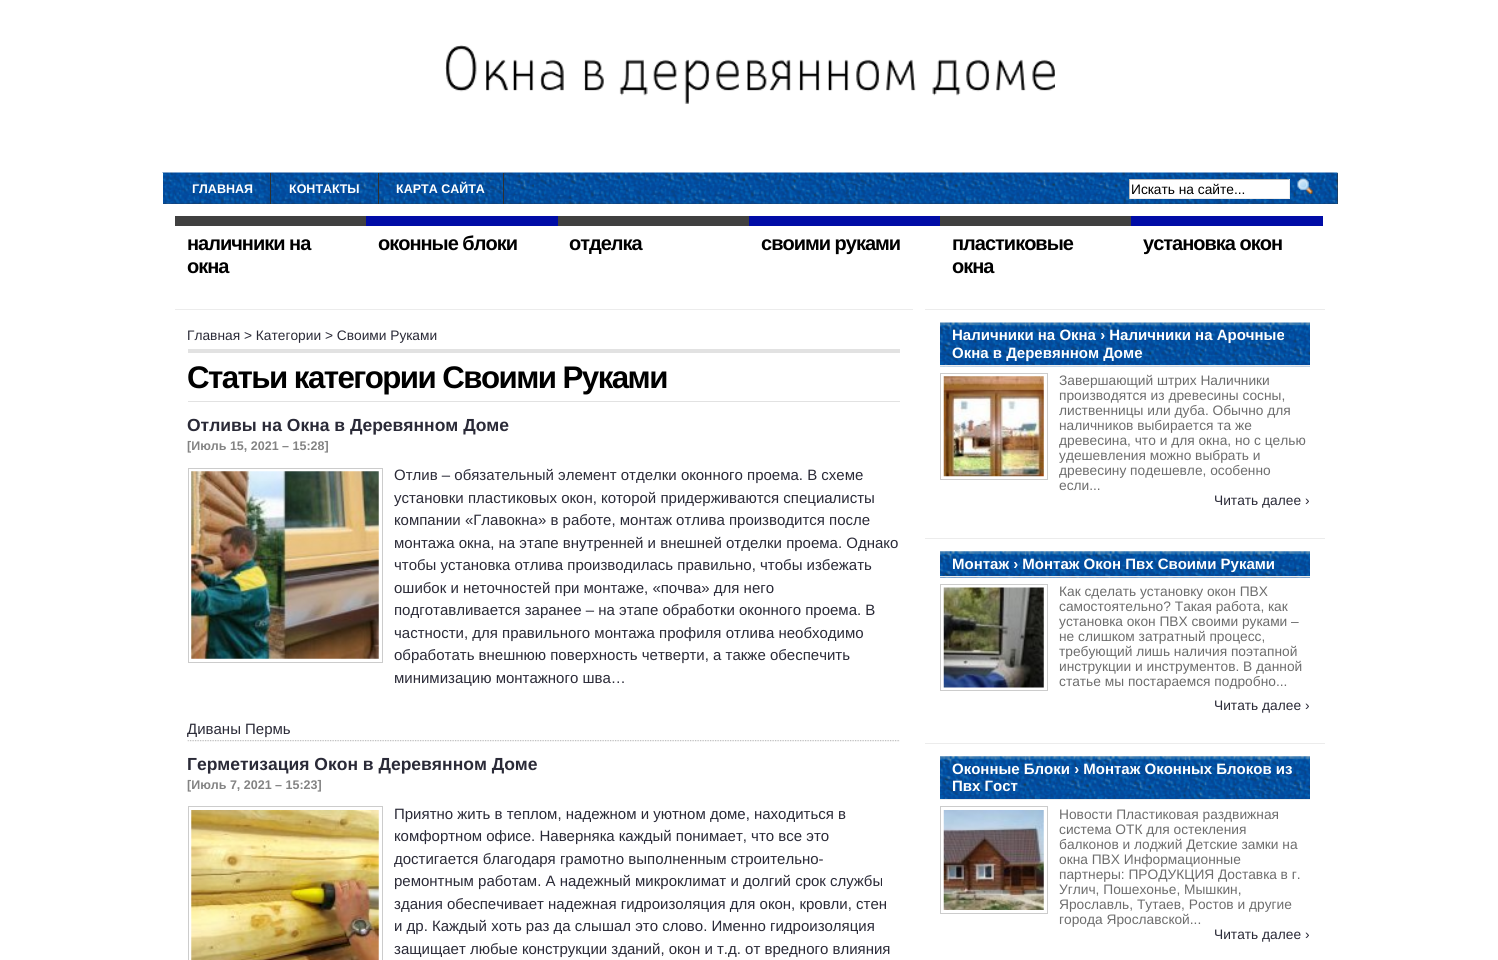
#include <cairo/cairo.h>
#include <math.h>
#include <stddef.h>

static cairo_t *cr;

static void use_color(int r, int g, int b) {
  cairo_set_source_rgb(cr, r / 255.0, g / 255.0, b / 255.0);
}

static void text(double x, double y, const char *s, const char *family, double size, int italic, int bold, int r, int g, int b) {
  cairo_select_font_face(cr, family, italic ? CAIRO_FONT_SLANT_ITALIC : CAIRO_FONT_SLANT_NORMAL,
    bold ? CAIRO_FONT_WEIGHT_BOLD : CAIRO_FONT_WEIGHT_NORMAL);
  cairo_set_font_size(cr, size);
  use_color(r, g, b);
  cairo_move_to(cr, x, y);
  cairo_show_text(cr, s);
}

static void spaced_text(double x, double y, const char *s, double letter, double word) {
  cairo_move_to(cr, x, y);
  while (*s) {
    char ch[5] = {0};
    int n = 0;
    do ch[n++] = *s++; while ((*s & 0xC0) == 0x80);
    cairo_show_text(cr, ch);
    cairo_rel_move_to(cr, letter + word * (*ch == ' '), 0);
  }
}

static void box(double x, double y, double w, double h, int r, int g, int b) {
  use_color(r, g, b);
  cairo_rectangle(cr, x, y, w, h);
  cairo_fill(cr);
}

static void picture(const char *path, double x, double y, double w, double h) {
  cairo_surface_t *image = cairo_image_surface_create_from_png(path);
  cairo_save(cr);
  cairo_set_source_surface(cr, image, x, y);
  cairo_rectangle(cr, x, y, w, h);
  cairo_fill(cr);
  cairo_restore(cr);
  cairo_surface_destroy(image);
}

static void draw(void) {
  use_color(255, 255, 255);
  cairo_paint(cr);
  picture("img_01.png", 445, 45, 610, 59);
  box(163, 173, 1175, 31, 51, 51, 51);
  picture("img_02.png", 162, 172, 1176, 32);
  box(162, 173, 1, 31, 255, 255, 255);
  box(270, 173, 1, 31, 48, 48, 48);
  box(378, 173, 1, 31, 48, 48, 48);
  box(503, 173, 1, 31, 48, 48, 48);
  box(1130, 180, 159, 18, 255, 255, 255);
  box(1129, 179, 161, 1, 187, 187, 187);
  box(1289, 179, 1, 20, 238, 238, 238);
  box(1129, 198, 161, 1, 238, 238, 238);
  box(1129, 179, 1, 20, 187, 187, 187);
  picture("img_03.png", 1297, 178, 16, 16);
  box(175, 216, 191, 10, 64, 64, 64);
  box(366, 216, 192, 10, 0, 12, 166);
  box(558, 216, 191, 10, 64, 64, 64);
  box(749, 216, 191, 10, 0, 12, 166);
  box(940, 216, 191, 10, 64, 64, 64);
  box(1131, 216, 192, 10, 0, 12, 166);
  box(175, 309, 738, 1, 236, 236, 236);
  box(188, 349, 712, 4, 226, 226, 226);
  box(188, 401, 712, 1, 226, 226, 226);
  picture("img_04.png", 187, 740, 713, 2);
  cairo_rectangle(cr, 188.5, 468.5, 194, 194);
  use_color(204, 204, 204);
  cairo_set_line_width(cr, 1);
  cairo_stroke(cr);
  picture("img_05.png", 191, 471, 188, 188);
  cairo_rectangle(cr, 188.5, 806.5, 194, 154);
  cairo_stroke(cr);
  picture("img_06.png", 191, 810, 188, 150);
  box(925, 309, 400, 1, 236, 236, 236);
  picture("img_07.png", 940, 322, 370, 45);
  box(940, 365, 370, 1, 236, 236, 236);
  cairo_rectangle(cr, 940.5, 373.5, 107, 106);
  use_color(204, 204, 204);
  cairo_stroke(cr);
  picture("img_08.png", 943, 376, 101, 101);
  box(925, 538, 400, 1, 236, 236, 236);
  picture("img_09.png", 940, 551, 370, 27);
  box(940, 576, 370, 1, 236, 236, 236);
  cairo_rectangle(cr, 940.5, 584.5, 107, 106);
  use_color(204, 204, 204);
  cairo_stroke(cr);
  picture("img_10.png", 943, 587, 101, 101);
  box(925, 743, 400, 1, 236, 236, 236);
  picture("img_11.png", 940, 756, 370, 43);
  box(940, 799, 370, 1, 236, 236, 236);
  cairo_rectangle(cr, 940.5, 806.5, 107, 107);
  use_color(204, 204, 204);
  cairo_stroke(cr);
  picture("img_12.png", 943, 810, 101, 100);
  text(192, 193, "ГЛАВНАЯ", "Liberation Sans", 12.5, 0, 1, 255, 255, 255);
  text(289, 193, "КОНТАКТЫ", "Liberation Sans", 12.5, 0, 1, 255, 255, 255);
  text(396, 193, "КАРТА САЙТА", "Liberation Sans", 12.5, 0, 1, 255, 255, 255);
  text(1131, 194, "Искать на сайте...", "Liberation Sans", 13.75, 0, 0, 0, 0, 0);
  cairo_select_font_face(cr, "Liberation Sans", CAIRO_FONT_SLANT_NORMAL, CAIRO_FONT_WEIGHT_BOLD);
  cairo_set_font_size(cr, 20);
  spaced_text(187, 250, "наличники на", -1, 0);
  spaced_text(187, 273, "окна", -1, 0);
  spaced_text(378, 250, "оконные блоки", -1, 0);
  spaced_text(569, 250, "отделка", -1, 0);
  spaced_text(761, 250, "своими руками", -1, 0);
  spaced_text(952, 250, "пластиковые", -1, 0);
  spaced_text(952, 273, "окна", -1, 0);
  spaced_text(1143, 250, "установка окон", -1, 0);
  text(187, 340, "Главная", "Liberation Sans", 13.75, 0, 0, 42, 42, 55);
  text(244, 340, "> Категории > Своими Руками", "Liberation Sans", 13.75, 0, 0, 42, 42, 55);
  cairo_select_font_face(cr, "Liberation Sans", CAIRO_FONT_SLANT_NORMAL, CAIRO_FONT_WEIGHT_BOLD);
  cairo_set_font_size(cr, 31.25);
  use_color(0, 0, 0);
  spaced_text(187, 388, "Статьи категории Своими Руками", -1.55, 0);
  text(187, 431, "Отливы на Окна в Деревянном Доме", "Liberation Sans", 17.5, 0, 1, 42, 42, 55);
  text(187, 450, "[Июль 15, 2021 – 15:28]", "Liberation Sans", 12.5, 0, 1, 131, 131, 131);
  text(394, 480, "Отлив – обязательный элемент отделки оконного проема. В схеме", "Liberation Sans", 15, 0, 0, 42, 42, 55);
  text(394, 503, "установки пластиковых окон, которой придерживаются специалисты", "Liberation Sans", 15, 0, 0, 42, 42, 55);
  text(394, 525, "компании «Главокна» в работе, монтаж отлива производится после", "Liberation Sans", 15, 0, 0, 42, 42, 55);
  text(394, 548, "монтажа окна, на этапе внутренней и внешней отделки проема. Однако", "Liberation Sans", 15, 0, 0, 42, 42, 55);
  text(394, 570, "чтобы установка отлива производилась правильно, чтобы избежать", "Liberation Sans", 15, 0, 0, 42, 42, 55);
  text(394, 593, "ошибок и неточностей при монтаже, «почва» для него", "Liberation Sans", 15, 0, 0, 42, 42, 55);
  text(394, 615, "подготавливается заранее – на этапе обработки оконного проема. В", "Liberation Sans", 15, 0, 0, 42, 42, 55);
  text(394, 638, "частности, для правильного монтажа профиля отлива необходимо", "Liberation Sans", 15, 0, 0, 42, 42, 55);
  text(394, 660, "обработать внешнюю поверхность четверти, а также обеспечить", "Liberation Sans", 15, 0, 0, 42, 42, 55);
  text(394, 683, "минимизацию монтажного шва…", "Liberation Sans", 15, 0, 0, 42, 42, 55);
  text(187, 734, "Диваны Пермь", "Liberation Sans", 15, 0, 0, 42, 42, 55);
  text(187, 770, "Герметизация Окон в Деревянном Доме", "Liberation Sans", 17.5, 0, 1, 42, 42, 55);
  text(187, 789, "[Июль 7, 2021 – 15:23]", "Liberation Sans", 12.5, 0, 1, 131, 131, 131);
  text(394, 819, "Приятно жить в теплом, надежном и уютном доме, находиться в", "Liberation Sans", 15, 0, 0, 42, 42, 55);
  text(394, 841, "комфортном офисе. Наверняка каждый понимает, что все это", "Liberation Sans", 15, 0, 0, 42, 42, 55);
  text(394, 864, "достигается благодаря грамотно выполненным строительно-", "Liberation Sans", 15, 0, 0, 42, 42, 55);
  text(394, 886, "ремонтным работам. А надежный микроклимат и долгий срок службы", "Liberation Sans", 15, 0, 0, 42, 42, 55);
  text(394, 909, "здания обеспечивает надежная гидроизоляция для окон, кровли, стен", "Liberation Sans", 15, 0, 0, 42, 42, 55);
  text(394, 931, "и др. Каждый хоть раз да слышал это слово. Именно гидроизоляция", "Liberation Sans", 15, 0, 0, 42, 42, 55);
  text(394, 954, "защищает любые конструкции зданий, окон и т.д. от вредного влияния", "Liberation Sans", 15, 0, 0, 42, 42, 55);
  text(952, 340, "Наличники на Окна › Наличники на Арочные", "Liberation Sans", 15, 0, 1, 255, 255, 255);
  text(952, 358, "Окна в Деревянном Доме", "Liberation Sans", 15, 0, 1, 255, 255, 255);
  text(1059, 385, "Завершающий штрих Наличники", "Liberation Sans", 13.75, 0, 0, 109, 109, 109);
  text(1059, 400, "производятся из древесины сосны,", "Liberation Sans", 13.75, 0, 0, 109, 109, 109);
  text(1059, 415, "лиственницы или дуба. Обычно для", "Liberation Sans", 13.75, 0, 0, 109, 109, 109);
  text(1059, 430, "наличников выбирается та же", "Liberation Sans", 13.75, 0, 0, 109, 109, 109);
  text(1059, 445, "древесина, что и для окна, но с целью", "Liberation Sans", 13.75, 0, 0, 109, 109, 109);
  text(1059, 460, "удешевления можно выбрать и", "Liberation Sans", 13.75, 0, 0, 109, 109, 109);
  text(1059, 475, "древесину подешевле, особенно", "Liberation Sans", 13.75, 0, 0, 109, 109, 109);
  text(1059, 490, "если...", "Liberation Sans", 13.75, 0, 0, 109, 109, 109);
  text(1214, 505, "Читать далее ›", "Liberation Sans", 13.75, 0, 0, 42, 42, 55);
  text(952, 569, "Монтаж › Монтаж Окон Пвх Своими Руками", "Liberation Sans", 15, 0, 1, 255, 255, 255);
  text(1059, 596, "Как сделать установку окон ПВХ", "Liberation Sans", 13.75, 0, 0, 109, 109, 109);
  text(1059, 611, "самостоятельно? Такая работа, как", "Liberation Sans", 13.75, 0, 0, 109, 109, 109);
  text(1059, 626, "установка окон ПВХ своими руками –", "Liberation Sans", 13.75, 0, 0, 109, 109, 109);
  text(1059, 641, "не слишком затратный процесс,", "Liberation Sans", 13.75, 0, 0, 109, 109, 109);
  text(1059, 656, "требующий лишь наличия поэтапной", "Liberation Sans", 13.75, 0, 0, 109, 109, 109);
  text(1059, 671, "инструкции и инструментов. В данной", "Liberation Sans", 13.75, 0, 0, 109, 109, 109);
  text(1059, 686, "статье мы постараемся подробно...", "Liberation Sans", 13.75, 0, 0, 109, 109, 109);
  text(1214, 710, "Читать далее ›", "Liberation Sans", 13.75, 0, 0, 42, 42, 55);
  text(952, 774, "Оконные Блоки › Монтаж Оконных Блоков из", "Liberation Sans", 15, 0, 1, 255, 255, 255);
  text(952, 791, "Пвх Гост", "Liberation Sans", 15, 0, 1, 255, 255, 255);
  text(1059, 819, "Новости Пластиковая раздвижная", "Liberation Sans", 13.75, 0, 0, 109, 109, 109);
  text(1059, 834, "система ОТК для остекления", "Liberation Sans", 13.75, 0, 0, 109, 109, 109);
  text(1059, 849, "балконов и лоджий Детские замки на", "Liberation Sans", 13.75, 0, 0, 109, 109, 109);
  text(1059, 864, "окна ПВХ Информационные", "Liberation Sans", 13.75, 0, 0, 109, 109, 109);
  text(1059, 879, "партнеры: ПРОДУКЦИЯ Доставка в г.", "Liberation Sans", 13.75, 0, 0, 109, 109, 109);
  text(1059, 894, "Углич, Пошехонье, Мышкин,", "Liberation Sans", 13.75, 0, 0, 109, 109, 109);
  text(1059, 909, "Ярославль, Тутаев, Ростов и другие", "Liberation Sans", 13.75, 0, 0, 109, 109, 109);
  text(1059, 924, "города Ярославской...", "Liberation Sans", 13.75, 0, 0, 109, 109, 109);
  text(1214, 939, "Читать далее ›", "Liberation Sans", 13.75, 0, 0, 42, 42, 55);
}

int main(void) {
  cairo_surface_t *surface = cairo_image_surface_create(CAIRO_FORMAT_RGB24, 1498, 960);
  cr = cairo_create(surface);
  cairo_font_options_t *options = cairo_font_options_create();
  cairo_font_options_set_hint_metrics(options, CAIRO_HINT_METRICS_OFF);
  cairo_font_options_set_hint_style(options, CAIRO_HINT_STYLE_NONE);
  cairo_set_font_options(cr, options);
  cairo_set_miter_limit(cr, 4);
  draw();
  cairo_surface_write_to_png(surface, "out.png");
  cairo_font_options_destroy(options);
  cairo_destroy(cr);
  cairo_surface_destroy(surface);
  return 0;
}
